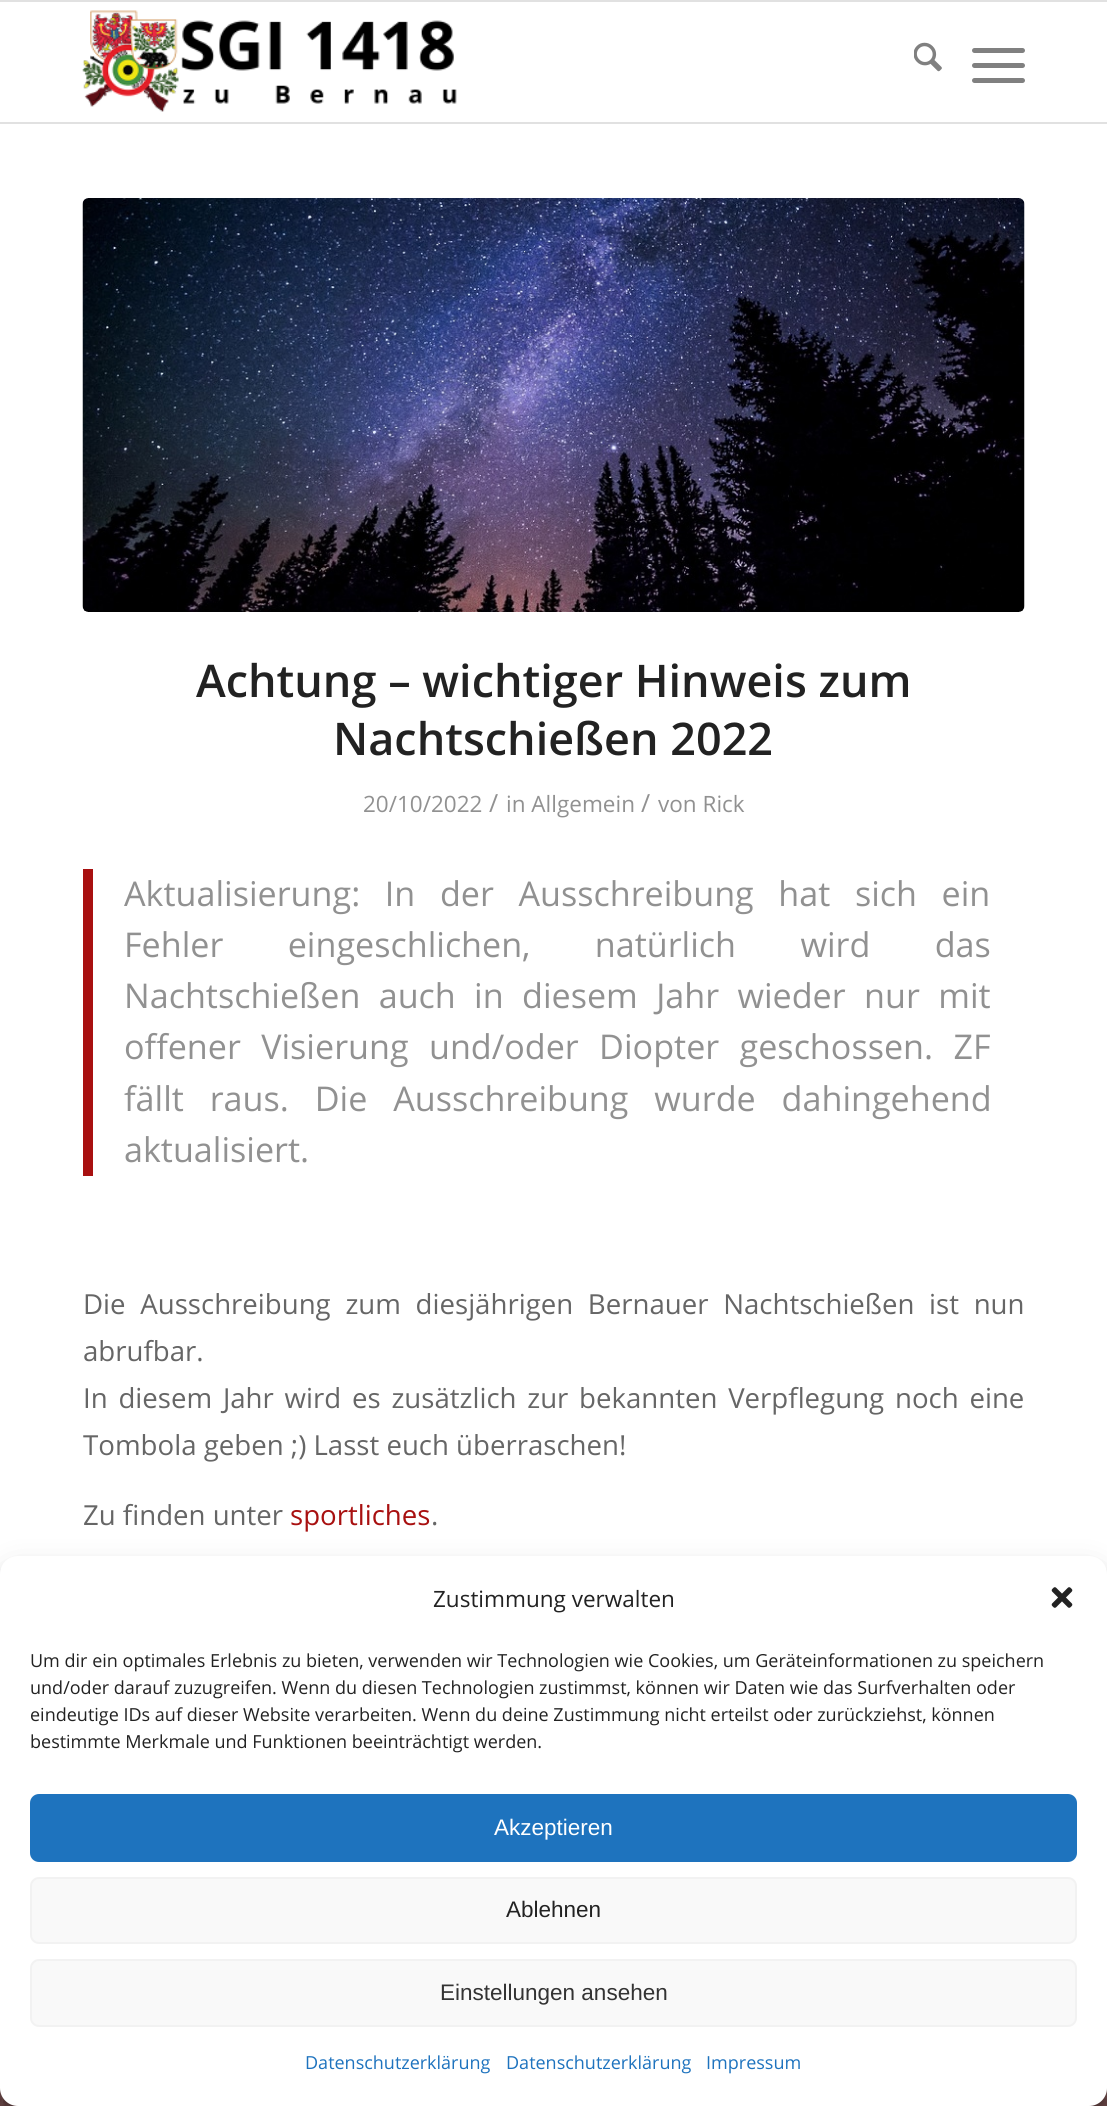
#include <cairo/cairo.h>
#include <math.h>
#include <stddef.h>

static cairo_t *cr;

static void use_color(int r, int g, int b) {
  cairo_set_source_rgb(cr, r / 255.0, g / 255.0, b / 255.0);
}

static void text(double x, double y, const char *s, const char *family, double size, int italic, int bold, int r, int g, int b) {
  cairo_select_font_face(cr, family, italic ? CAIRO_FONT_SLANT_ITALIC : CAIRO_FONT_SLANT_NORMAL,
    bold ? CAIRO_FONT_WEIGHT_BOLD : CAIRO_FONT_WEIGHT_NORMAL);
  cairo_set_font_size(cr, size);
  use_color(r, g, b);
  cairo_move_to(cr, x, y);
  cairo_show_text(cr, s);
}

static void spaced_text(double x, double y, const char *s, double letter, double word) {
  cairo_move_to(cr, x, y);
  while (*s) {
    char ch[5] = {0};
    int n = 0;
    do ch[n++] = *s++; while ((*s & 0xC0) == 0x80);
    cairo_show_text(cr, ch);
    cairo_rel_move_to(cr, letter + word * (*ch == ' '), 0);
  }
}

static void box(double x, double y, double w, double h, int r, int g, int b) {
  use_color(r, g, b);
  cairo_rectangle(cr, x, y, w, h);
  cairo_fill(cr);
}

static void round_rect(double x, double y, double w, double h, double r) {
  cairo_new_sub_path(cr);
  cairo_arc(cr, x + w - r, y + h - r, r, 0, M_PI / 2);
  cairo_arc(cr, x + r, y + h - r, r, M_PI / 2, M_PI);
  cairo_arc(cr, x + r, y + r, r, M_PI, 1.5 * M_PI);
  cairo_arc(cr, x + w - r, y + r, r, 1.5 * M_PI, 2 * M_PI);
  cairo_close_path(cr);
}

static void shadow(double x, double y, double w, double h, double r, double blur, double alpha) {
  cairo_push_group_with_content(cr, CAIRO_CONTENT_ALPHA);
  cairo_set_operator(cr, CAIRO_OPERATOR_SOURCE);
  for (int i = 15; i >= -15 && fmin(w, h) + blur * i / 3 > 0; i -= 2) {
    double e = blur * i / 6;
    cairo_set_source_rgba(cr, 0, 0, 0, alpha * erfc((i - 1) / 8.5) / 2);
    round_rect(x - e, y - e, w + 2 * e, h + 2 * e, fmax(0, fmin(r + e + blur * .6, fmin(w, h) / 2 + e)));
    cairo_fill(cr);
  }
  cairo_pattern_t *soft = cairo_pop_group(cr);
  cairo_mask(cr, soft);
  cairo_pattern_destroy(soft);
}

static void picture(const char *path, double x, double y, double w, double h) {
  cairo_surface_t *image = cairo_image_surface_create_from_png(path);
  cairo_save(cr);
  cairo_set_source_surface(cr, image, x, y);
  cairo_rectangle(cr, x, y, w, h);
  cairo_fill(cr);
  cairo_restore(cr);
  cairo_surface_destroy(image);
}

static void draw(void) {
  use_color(102, 61, 61);
  cairo_paint(cr);
  picture("img_01.png", 0, 2088, 1107, 18);
  box(0, 0, 1107, 2, 225, 225, 225);
  box(0, 122, 1107, 2, 225, 225, 225);
  box(0, 2, 1107, 120, 255, 255, 255);
  picture("img_02.png", 82, 10, 375, 102);
  picture("img_03.png", 914, 42, 28, 30);
  use_color(128, 128, 128);
  round_rect(972, 63, 53, 5, 2.5);
  cairo_fill(cr);
  round_rect(972, 48, 53, 5, 2.5);
  cairo_fill(cr);
  round_rect(972, 78, 53, 5, 2.5);
  cairo_fill(cr);
  box(0, 124, 1107, 1450, 255, 255, 255);
  picture("img_04.png", 82, 198, 943, 414);
  box(83, 869, 10, 307, 168, 16, 16);
  use_color(0, 0, 0);
  shadow(0, 1565, 1107, 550, 18, 4.5, 0.23);
  shadow(0, 1571, 1107, 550, 18, 15, 0.19);
  use_color(255, 255, 255);
  round_rect(0, 1556, 1107, 550, 18);
  cairo_fill(cr);
  picture("img_05.png", 1051, 1587, 22, 21);
  use_color(30, 115, 190);
  round_rect(31, 1795, 1045, 66, 8);
  cairo_fill_preserve(cr);
  cairo_stroke(cr);
  use_color(249, 249, 249);
  round_rect(31, 1878, 1045, 65, 8);
  cairo_fill_preserve(cr);
  use_color(242, 242, 242);
  cairo_stroke(cr);
  use_color(249, 249, 249);
  round_rect(31, 1960, 1045, 66, 8);
  cairo_fill_preserve(cr);
  use_color(242, 242, 242);
  cairo_stroke(cr);
  text(196, 697, "Achtung – wichtiger Hinweis zum", "Open Sans SemiBold", 45, 0, 0, 34, 34, 34);
  text(333, 755, "Nachtschießen 2022", "Open Sans SemiBold", 45, 0, 0, 34, 34, 34);
  text(363, 812, "20/10/2022", "Open Sans", 22.5, 0, 0, 145, 145, 145);
  text(489, 812, "/", "Open Sans", 25, 0, 0, 145, 145, 145);
  text(506, 812, "in Allgemein", "Open Sans", 22.5, 0, 0, 145, 145, 145);
  text(641, 812, "/", "Open Sans", 25, 0, 0, 145, 145, 145);
  text(658, 812, "von Rick", "Open Sans", 22.5, 0, 0, 145, 145, 145);
  cairo_set_font_size(cr, 34.1);
  spaced_text(124, 906, "Aktualisierung: In der Ausschreibung hat sich ein", 0, 15.75);
  spaced_text(124, 957, "Fehler eingeschlichen, natürlich wird das", 0, 55.5);
  spaced_text(124, 1008, "Nachtschießen auch in diesem Jahr wieder nur mit", 0, 9.5);
  spaced_text(124, 1059, "offener Visierung und/oder Diopter geschossen. ZF", 0, 11.5);
  spaced_text(124, 1111, "fällt raus. Die Ausschreibung wurde dahingehend", 0, 17);
  text(124, 1162, "aktualisiert.", "Open Sans", 34.1, 0, 0, 145, 145, 145);
  cairo_set_font_size(cr, 27.6);
  use_color(102, 102, 102);
  spaced_text(83, 1314, "Die Ausschreibung zum diesjährigen Bernauer Nachtschießen ist nun", 0, 7.5);
  text(83, 1361, "abrufbar.", "Open Sans", 27.6, 0, 0, 102, 102, 102);
  spaced_text(83, 1408, "In diesem Jahr wird es zusätzlich zur bekannten Verpflegung noch eine", 0, 3.6);
  text(83, 1455, "Tombola geben ;) Lasst euch überraschen!", "Open Sans", 27.6, 0, 0, 102, 102, 102);
  text(83, 1525, "Zu finden unter", "Open Sans", 27.6, 0, 0, 102, 102, 102);
  text(290, 1525, "sportliches", "Open Sans", 27.6, 0, 0, 168, 16, 16);
  text(431, 1525, ".", "Open Sans", 27.6, 0, 0, 102, 102, 102);
  text(433, 1607, "Zustimmung verwalten", "Open Sans", 22.5, 0, 0, 34, 34, 34);
  text(30, 1667, "Um dir ein optimales Erlebnis zu bieten, verwenden wir Technologien wie Cookies, um Geräteinformationen zu speichern", "Open Sans", 18, 0, 0, 34, 34, 34);
  text(30, 1694, "und/oder darauf zuzugreifen. Wenn du diesen Technologien zustimmst, können wir Daten wie das Surfverhalten oder", "Open Sans", 18, 0, 0, 34, 34, 34);
  text(30, 1721, "eindeutige IDs auf dieser Website verarbeiten. Wenn du deine Zustimmung nicht erteilst oder zurückziehst, können", "Open Sans", 18, 0, 0, 34, 34, 34);
  text(30, 1748, "bestimmte Merkmale und Funktionen beeinträchtigt werden.", "Open Sans", 18, 0, 0, 34, 34, 34);
  text(494, 1835, "Akzeptieren", "Liberation Sans", 22.5, 0, 0, 255, 255, 255);
  text(506, 1917, "Ablehnen", "Liberation Sans", 22.5, 0, 0, 34, 34, 34);
  text(440, 2000, "Einstellungen ansehen", "Liberation Sans", 22.5, 0, 0, 51, 51, 51);
  text(305, 2069, "Datenschutzerklärung", "Open Sans", 18, 0, 0, 30, 115, 190);
  text(506, 2069, "Datenschutzerklärung", "Open Sans", 18, 0, 0, 30, 115, 190);
  text(706, 2069, "Impressum", "Open Sans", 18, 0, 0, 30, 115, 190);
}

int main(void) {
  cairo_surface_t *surface = cairo_image_surface_create(CAIRO_FORMAT_RGB24, 1107, 2106);
  cr = cairo_create(surface);
  cairo_font_options_t *options = cairo_font_options_create();
  cairo_font_options_set_hint_metrics(options, CAIRO_HINT_METRICS_OFF);
  cairo_font_options_set_hint_style(options, CAIRO_HINT_STYLE_NONE);
  cairo_set_font_options(cr, options);
  cairo_set_miter_limit(cr, 4);
  draw();
  cairo_surface_write_to_png(surface, "out.png");
  cairo_font_options_destroy(options);
  cairo_destroy(cr);
  cairo_surface_destroy(surface);
  return 0;
}
